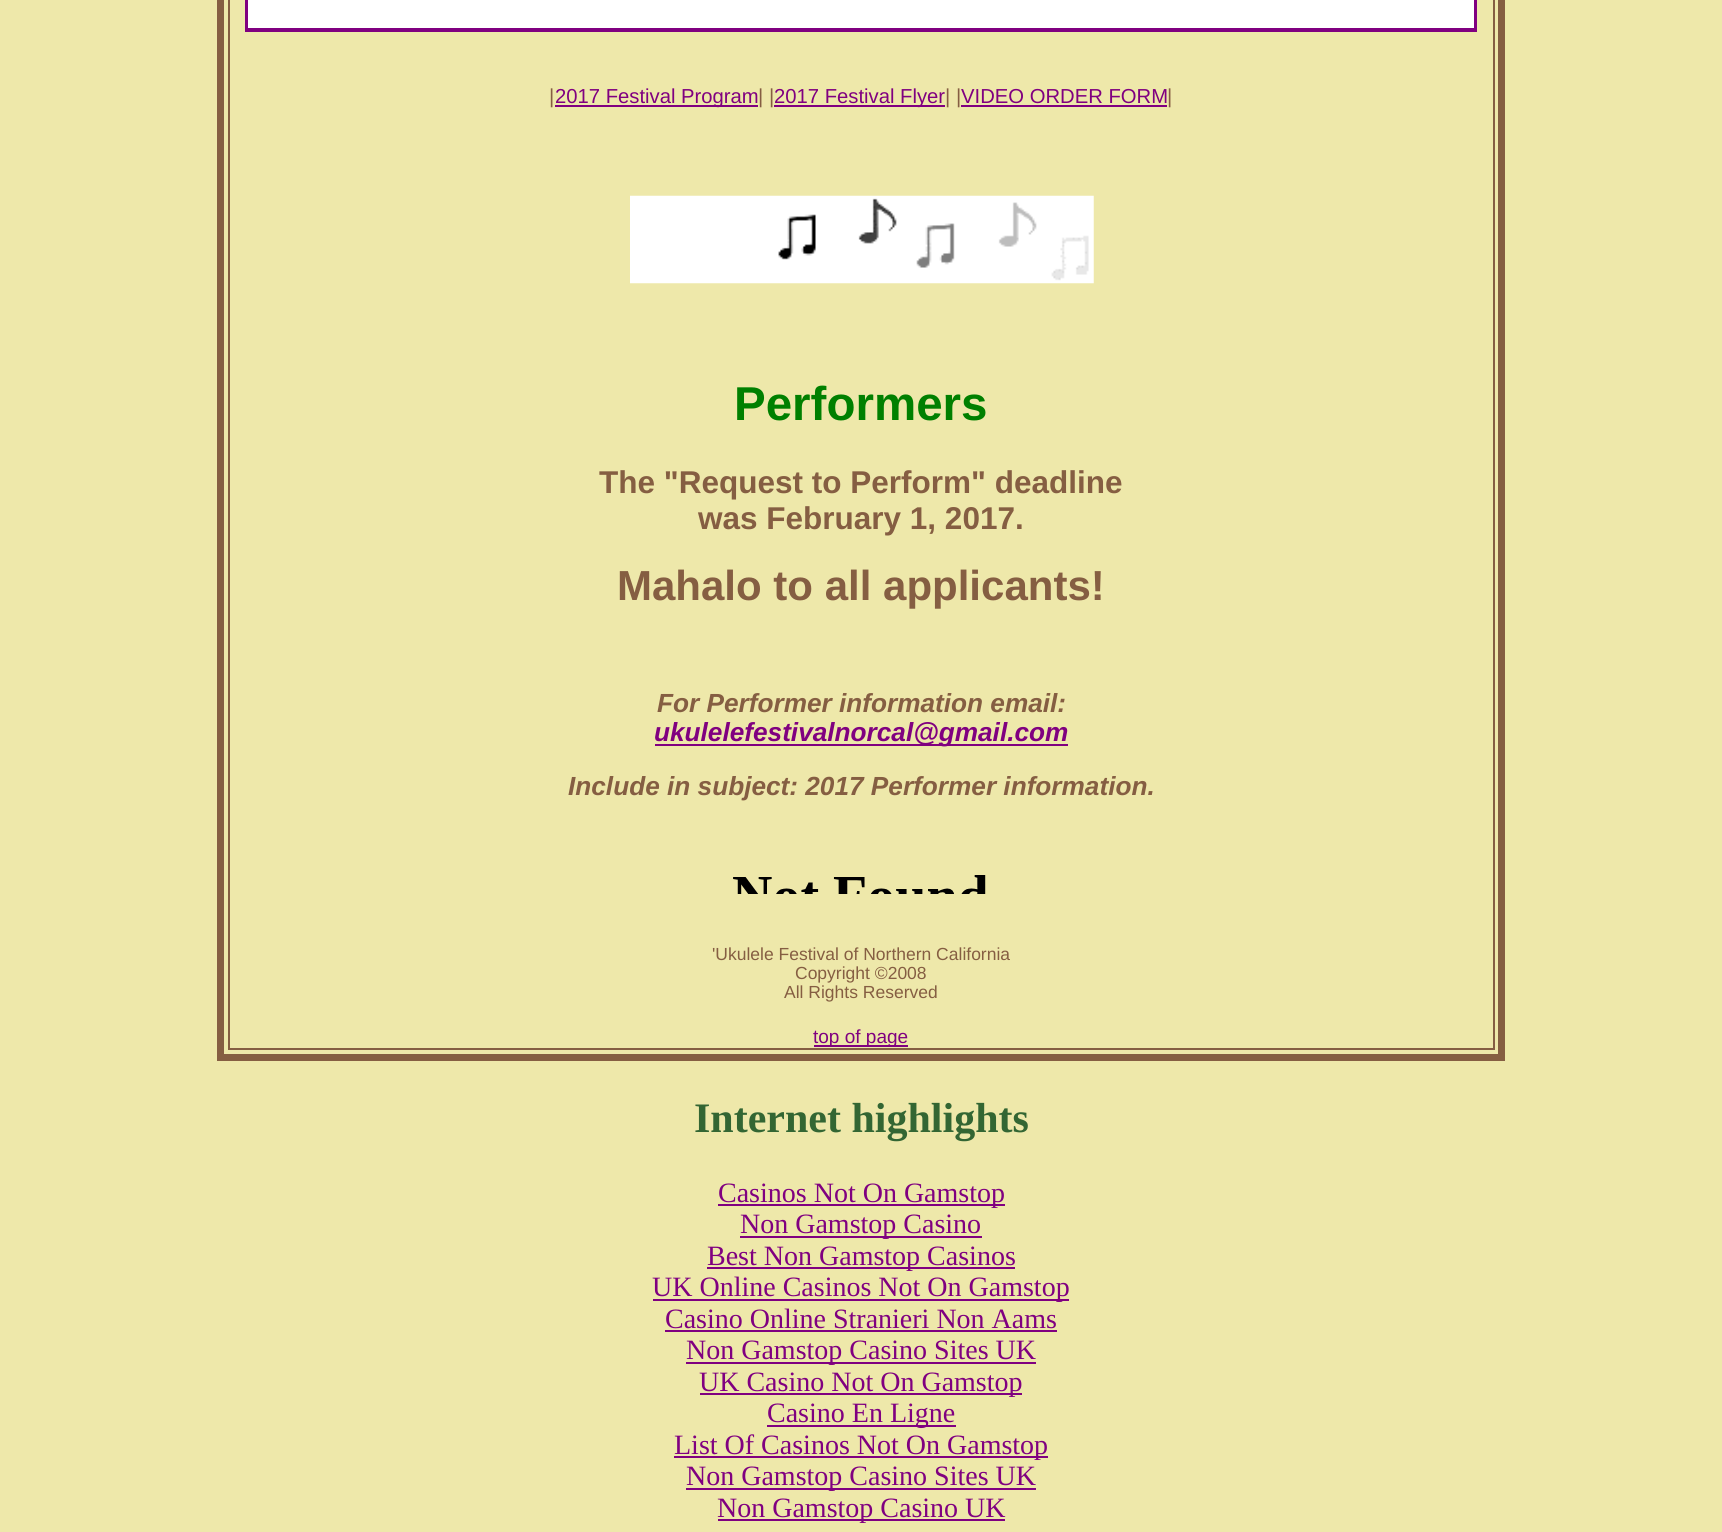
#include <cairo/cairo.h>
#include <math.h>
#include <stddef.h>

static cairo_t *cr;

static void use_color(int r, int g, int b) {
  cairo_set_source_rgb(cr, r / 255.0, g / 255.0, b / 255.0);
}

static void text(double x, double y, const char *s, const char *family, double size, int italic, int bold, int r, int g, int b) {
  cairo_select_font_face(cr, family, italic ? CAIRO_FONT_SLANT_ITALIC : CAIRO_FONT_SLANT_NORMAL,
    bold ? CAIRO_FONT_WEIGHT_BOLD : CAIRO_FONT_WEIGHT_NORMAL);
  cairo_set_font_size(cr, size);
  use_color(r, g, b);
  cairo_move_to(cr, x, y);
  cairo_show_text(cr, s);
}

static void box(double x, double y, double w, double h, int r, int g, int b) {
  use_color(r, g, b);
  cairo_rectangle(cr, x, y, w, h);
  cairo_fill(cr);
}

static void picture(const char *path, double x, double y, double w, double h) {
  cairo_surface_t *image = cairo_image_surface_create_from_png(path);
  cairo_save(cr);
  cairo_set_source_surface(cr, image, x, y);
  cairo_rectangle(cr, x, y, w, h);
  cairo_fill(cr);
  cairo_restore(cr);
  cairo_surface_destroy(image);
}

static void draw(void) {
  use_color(238, 232, 170);
  cairo_paint(cr);
  cairo_rectangle(cr, 220.5, -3.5, 1281, 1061);
  use_color(133, 94, 66);
  cairo_set_line_width(cr, 7);
  cairo_stroke(cr);
  cairo_rectangle(cr, 229, -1, 1265, 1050);
  cairo_set_line_width(cr, 2);
  cairo_stroke(cr);
  cairo_rectangle(cr, 247, -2, 1228, 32);
  use_color(128, 0, 128);
  cairo_set_line_width(cr, 4);
  cairo_stroke(cr);
  box(248, 0, 1226, 28, 255, 255, 255);
  box(555, 105, 203, 2, 128, 0, 128);
  box(774, 105, 171, 2, 128, 0, 128);
  box(961, 105, 206, 2, 128, 0, 128);
  picture("img_01.png", 630, 195, 464, 89);
  box(655, 744, 413, 2, 128, 0, 128);
  picture("img_02.png", 733, 875, 253, 19);
  box(814, 1045, 94, 2, 128, 0, 128);
  box(718, 1204, 287, 2, 128, 0, 128);
  box(740, 1236, 242, 2, 128, 0, 128);
  box(707, 1267, 308, 2, 128, 0, 128);
  box(653, 1299, 416, 2, 128, 0, 128);
  box(665, 1330, 392, 2, 128, 0, 128);
  box(686, 1362, 350, 2, 128, 0, 128);
  box(700, 1393, 322, 2, 128, 0, 128);
  box(767, 1425, 189, 2, 128, 0, 128);
  box(674, 1456, 374, 2, 128, 0, 128);
  box(686, 1488, 350, 2, 128, 0, 128);
  box(718, 1519, 287, 2, 128, 0, 128);
  text(549, 103, "|", "Liberation Sans", 20.25, 0, 0, 133, 94, 66);
  text(555, 103, "2017 Festival Program", "Liberation Sans", 20.25, 0, 0, 128, 0, 128);
  text(758, 103, "| |", "Liberation Sans", 20.25, 0, 0, 133, 94, 66);
  text(774, 103, "2017 Festival Flyer", "Liberation Sans", 20.25, 0, 0, 128, 0, 128);
  text(945, 103, "| |", "Liberation Sans", 20.25, 0, 0, 133, 94, 66);
  text(961, 103, "VIDEO ORDER FORM", "Liberation Sans", 20.25, 0, 0, 128, 0, 128);
  text(1167, 103, "|", "Liberation Sans", 20.25, 0, 0, 133, 94, 66);
  text(734, 420, "Performers", "Liberation Sans", 47.5, 0, 1, 0, 128, 0);
  text(599, 493, "The \"Request to Perform\" deadline", "Liberation Sans", 31.5, 0, 1, 133, 94, 66);
  text(698, 529, "was February 1, 2017.", "Liberation Sans", 31.5, 0, 1, 133, 94, 66);
  text(617, 600, "Mahalo to all applicants!", "Liberation Sans", 42, 0, 1, 133, 94, 66);
  text(657, 712, "For Performer information email:", "Liberation Sans", 26.2, 1, 1, 133, 94, 66);
  text(654, 741, "ukulelefestivalnorcal@gmail.com", "Liberation Sans", 26.2, 1, 1, 128, 0, 128);
  text(568, 795, "Include in subject: 2017 Performer information.", "Liberation Sans", 26.2, 1, 1, 133, 94, 66);
  text(712, 960, "'Ukulele Festival of Northern California", "Liberation Sans", 17.5, 0, 0, 133, 94, 66);
  text(795, 979, "Copyright ©2008", "Liberation Sans", 17.5, 0, 0, 133, 94, 66);
  text(784, 998, "All Rights Reserved", "Liberation Sans", 17.5, 0, 0, 133, 94, 66);
  text(813, 1043, "top of page", "Liberation Sans", 19, 0, 0, 128, 0, 128);
  text(694, 1132, "Internet highlights", "Liberation Serif", 42, 0, 1, 51, 102, 51);
  text(718, 1202, "Casinos Not On Gamstop", "Liberation Serif", 28, 0, 0, 128, 0, 128);
  text(740, 1233, "Non Gamstop Casino", "Liberation Serif", 28, 0, 0, 128, 0, 128);
  text(707, 1265, "Best Non Gamstop Casinos", "Liberation Serif", 28, 0, 0, 128, 0, 128);
  text(652, 1296, "UK Online Casinos Not On Gamstop", "Liberation Serif", 28, 0, 0, 128, 0, 128);
  text(665, 1328, "Casino Online Stranieri Non Aams", "Liberation Serif", 28, 0, 0, 128, 0, 128);
  text(686, 1359, "Non Gamstop Casino Sites UK", "Liberation Serif", 28, 0, 0, 128, 0, 128);
  text(699, 1391, "UK Casino Not On Gamstop", "Liberation Serif", 28, 0, 0, 128, 0, 128);
  text(767, 1422, "Casino En Ligne", "Liberation Serif", 28, 0, 0, 128, 0, 128);
  text(674, 1454, "List Of Casinos Not On Gamstop", "Liberation Serif", 28, 0, 0, 128, 0, 128);
  text(686, 1485, "Non Gamstop Casino Sites UK", "Liberation Serif", 28, 0, 0, 128, 0, 128);
  text(717, 1517, "Non Gamstop Casino UK", "Liberation Serif", 28, 0, 0, 128, 0, 128);
}

int main(void) {
  cairo_surface_t *surface = cairo_image_surface_create(CAIRO_FORMAT_RGB24, 1722, 1532);
  cr = cairo_create(surface);
  cairo_font_options_t *options = cairo_font_options_create();
  cairo_font_options_set_hint_metrics(options, CAIRO_HINT_METRICS_OFF);
  cairo_font_options_set_hint_style(options, CAIRO_HINT_STYLE_NONE);
  cairo_set_font_options(cr, options);
  cairo_set_miter_limit(cr, 4);
  draw();
  cairo_surface_write_to_png(surface, "out.png");
  cairo_font_options_destroy(options);
  cairo_destroy(cr);
  cairo_surface_destroy(surface);
  return 0;
}
